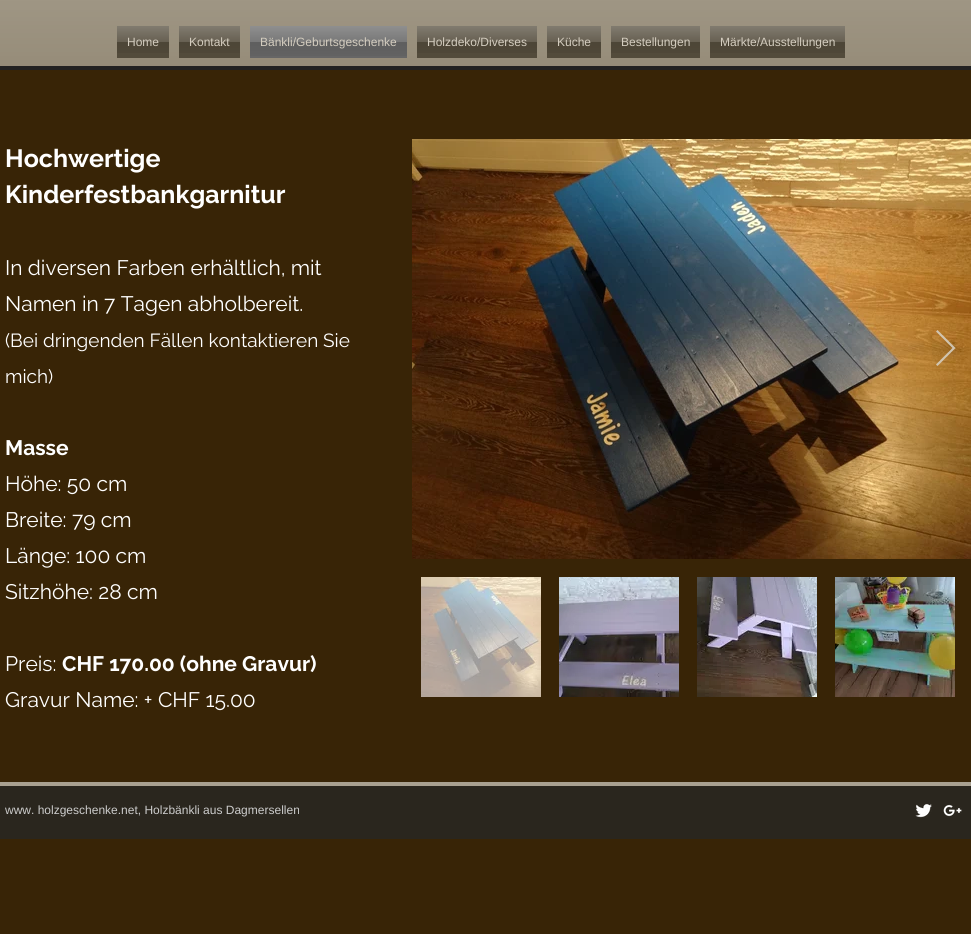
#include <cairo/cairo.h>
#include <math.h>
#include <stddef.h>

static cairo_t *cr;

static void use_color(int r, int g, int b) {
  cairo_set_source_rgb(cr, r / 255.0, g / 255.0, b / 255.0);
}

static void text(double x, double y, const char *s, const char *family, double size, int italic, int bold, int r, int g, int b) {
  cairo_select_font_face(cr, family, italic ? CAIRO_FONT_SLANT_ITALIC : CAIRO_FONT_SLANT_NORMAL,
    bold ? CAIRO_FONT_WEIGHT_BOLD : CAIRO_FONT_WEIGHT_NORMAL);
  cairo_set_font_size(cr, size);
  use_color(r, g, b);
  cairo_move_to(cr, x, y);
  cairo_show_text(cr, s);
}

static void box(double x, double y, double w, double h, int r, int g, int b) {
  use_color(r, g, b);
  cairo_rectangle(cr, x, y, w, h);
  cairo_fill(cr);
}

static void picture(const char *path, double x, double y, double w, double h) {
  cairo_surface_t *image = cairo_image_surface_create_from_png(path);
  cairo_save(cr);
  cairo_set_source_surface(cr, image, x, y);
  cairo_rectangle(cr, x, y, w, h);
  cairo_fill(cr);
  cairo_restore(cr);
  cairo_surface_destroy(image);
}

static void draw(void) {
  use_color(56, 36, 6);
  cairo_paint(cr);
  box(0, 0, 971, 66, 125, 113, 89);
  box(0, 66, 971, 4, 34, 34, 34);
  picture("img_01.png", 0, 0, 971, 66);
  box(117, 26, 52, 32, 83, 75, 59);
  picture("img_02.png", 117, 26, 52, 27);
  box(179, 26, 61, 32, 83, 75, 59);
  picture("img_03.png", 179, 26, 61, 27);
  box(250, 26, 157, 32, 102, 102, 102);
  picture("img_04.png", 250, 26, 157, 30);
  box(417, 26, 120, 32, 83, 75, 59);
  picture("img_05.png", 417, 26, 120, 27);
  box(547, 26, 54, 32, 83, 75, 59);
  picture("img_06.png", 547, 26, 54, 27);
  box(611, 26, 89, 32, 83, 75, 59);
  picture("img_07.png", 611, 26, 89, 27);
  box(710, 26, 135, 32, 83, 75, 59);
  picture("img_08.png", 710, 26, 135, 27);
  picture("img_09.png", 412, 139, 559, 420);
  cairo_set_source_rgba(cr, 0.831, 0.804, 0.749, 0.9);
  cairo_new_path(cr);
  cairo_move_to(cr, 936, 331.5);
  cairo_line_to(cr, 937.5, 330);
  cairo_line_to(cr, 955.5, 348);
  cairo_line_to(cr, 937.5, 366);
  cairo_line_to(cr, 936, 364.5);
  cairo_line_to(cr, 952.5, 348);
  cairo_close_path(cr);
  cairo_fill(cr);
  picture("img_10.png", 421, 577, 120, 120);
  picture("img_11.png", 559, 577, 120, 120);
  picture("img_12.png", 697, 577, 120, 120);
  picture("img_13.png", 835, 577, 120, 120);
  box(0, 786, 971, 53, 42, 38, 30);
  box(0, 782, 971, 4, 168, 160, 144);
  picture("img_14.png", 915, 804, 17, 14);
  picture("img_15.png", 943, 804, 19, 13);
  text(127, 46, "Home", "Liberation Sans", 12, 0, 0, 212, 205, 191);
  text(189, 46, "Kontakt", "Liberation Sans", 12, 0, 0, 212, 205, 191);
  text(260, 46, "Bänkli/Geburtsgeschenke", "Liberation Sans", 12, 0, 0, 212, 205, 191);
  text(427, 46, "Holzdeko/Diverses", "Liberation Sans", 12, 0, 0, 212, 205, 191);
  text(557, 46, "Küche", "Liberation Sans", 12, 0, 0, 212, 205, 191);
  text(621, 46, "Bestellungen", "Liberation Sans", 12, 0, 0, 212, 205, 191);
  text(720, 46, "Märkte/Ausstellungen", "Liberation Sans", 12, 0, 0, 212, 205, 191);
  text(5, 167, "Hochwertige", "Raleway", 25, 0, 1, 255, 255, 255);
  text(5, 203, "Kinderfestbankgarnitur", "Raleway", 25, 0, 1, 255, 255, 255);
  text(5, 275, "In diversen Farben erhältlich, mit", "Raleway", 21, 0, 0, 255, 255, 255);
  text(5, 311, "Namen in 7 Tagen abholbereit.", "Raleway", 21, 0, 0, 255, 255, 255);
  text(5, 347, "(Bei dringenden Fällen kontaktieren Sie", "Raleway", 19, 0, 0, 255, 255, 255);
  text(5, 383, "mich)", "Raleway", 19, 0, 0, 255, 255, 255);
  text(5, 455, "Masse", "Raleway", 21, 0, 1, 255, 255, 255);
  text(5, 491, "Höhe: 50 cm", "Raleway", 21, 0, 0, 255, 255, 255);
  text(5, 527, "Breite: 79 cm", "Raleway", 21, 0, 0, 255, 255, 255);
  text(5, 563, "Länge: 100 cm", "Raleway", 21, 0, 0, 255, 255, 255);
  text(5, 599, "Sitzhöhe: 28 cm", "Raleway", 21, 0, 0, 255, 255, 255);
  text(5, 671, "Preis:", "Raleway", 21, 0, 0, 255, 255, 255);
  text(62, 671, "CHF 170.00 (ohne Gravur)", "Raleway", 21, 0, 1, 255, 255, 255);
  text(5, 707, "Gravur Name: + CHF 15.00", "Raleway", 21, 0, 0, 255, 255, 255);
  text(5, 814, "www. holzgeschenke.net, Holzbänkli aus Dagmersellen", "Liberation Sans", 12, 0, 0, 204, 204, 204);
}

int main(void) {
  cairo_surface_t *surface = cairo_image_surface_create(CAIRO_FORMAT_RGB24, 971, 934);
  cr = cairo_create(surface);
  cairo_font_options_t *options = cairo_font_options_create();
  cairo_font_options_set_hint_metrics(options, CAIRO_HINT_METRICS_OFF);
  cairo_font_options_set_hint_style(options, CAIRO_HINT_STYLE_NONE);
  cairo_set_font_options(cr, options);
  cairo_set_miter_limit(cr, 4);
  draw();
  cairo_surface_write_to_png(surface, "out.png");
  cairo_font_options_destroy(options);
  cairo_destroy(cr);
  cairo_surface_destroy(surface);
  return 0;
}
